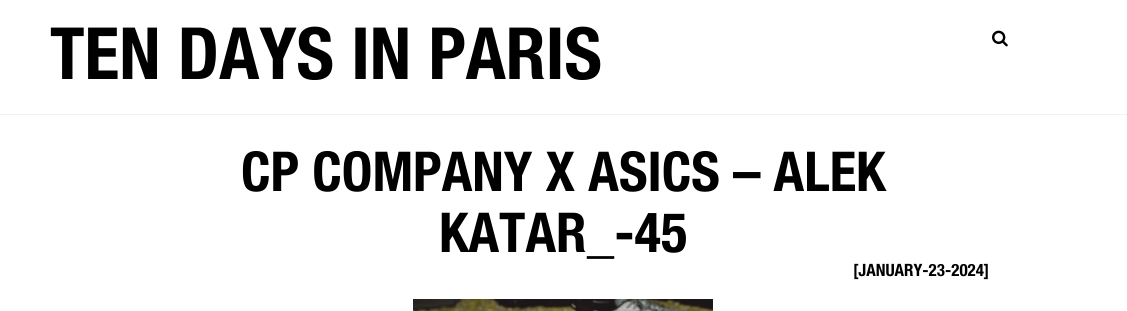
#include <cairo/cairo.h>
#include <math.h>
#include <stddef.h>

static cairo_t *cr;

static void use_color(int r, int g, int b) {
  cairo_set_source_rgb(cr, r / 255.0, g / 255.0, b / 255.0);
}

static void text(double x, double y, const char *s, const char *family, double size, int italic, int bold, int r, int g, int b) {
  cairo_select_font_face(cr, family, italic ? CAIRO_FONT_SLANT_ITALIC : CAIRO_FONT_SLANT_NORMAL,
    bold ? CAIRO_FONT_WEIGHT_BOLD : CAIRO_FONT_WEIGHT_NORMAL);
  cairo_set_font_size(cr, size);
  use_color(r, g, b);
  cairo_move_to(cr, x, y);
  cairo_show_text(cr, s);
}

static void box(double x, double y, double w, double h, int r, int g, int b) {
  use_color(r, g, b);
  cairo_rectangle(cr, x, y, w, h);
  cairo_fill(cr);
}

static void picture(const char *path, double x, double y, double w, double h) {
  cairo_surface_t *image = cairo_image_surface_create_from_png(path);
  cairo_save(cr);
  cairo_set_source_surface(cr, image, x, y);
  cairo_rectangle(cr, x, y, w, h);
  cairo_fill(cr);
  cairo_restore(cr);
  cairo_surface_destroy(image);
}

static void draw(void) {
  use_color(255, 255, 255);
  cairo_paint(cr);
  box(0, 114, 1127, 1, 242, 242, 242);
  picture("img_01.png", 992, 30, 16, 17);
  picture("img_02.png", 413, 299, 300, 12);
  text(50, 79, "TEN DAYS IN PARIS", "Helvetica Neue", 72, 0, 1, 0, 0, 0);
  text(241, 191, "CP COMPANY X ASICS – ALEK", "Helvetica Neue", 55, 0, 1, 0, 0, 0);
  text(439, 252, "KATAR_-45", "Helvetica Neue", 55, 0, 1, 0, 0, 0);
  text(853, 276, "[JANUARY-23-2024]", "Helvetica Neue", 17, 0, 1, 0, 0, 0);
}

int main(void) {
  cairo_surface_t *surface = cairo_image_surface_create(CAIRO_FORMAT_RGB24, 1127, 311);
  cr = cairo_create(surface);
  cairo_font_options_t *options = cairo_font_options_create();
  cairo_font_options_set_hint_metrics(options, CAIRO_HINT_METRICS_OFF);
  cairo_font_options_set_hint_style(options, CAIRO_HINT_STYLE_NONE);
  cairo_set_font_options(cr, options);
  cairo_set_miter_limit(cr, 4);
  draw();
  cairo_surface_write_to_png(surface, "out.png");
  cairo_font_options_destroy(options);
  cairo_destroy(cr);
  cairo_surface_destroy(surface);
  return 0;
}
